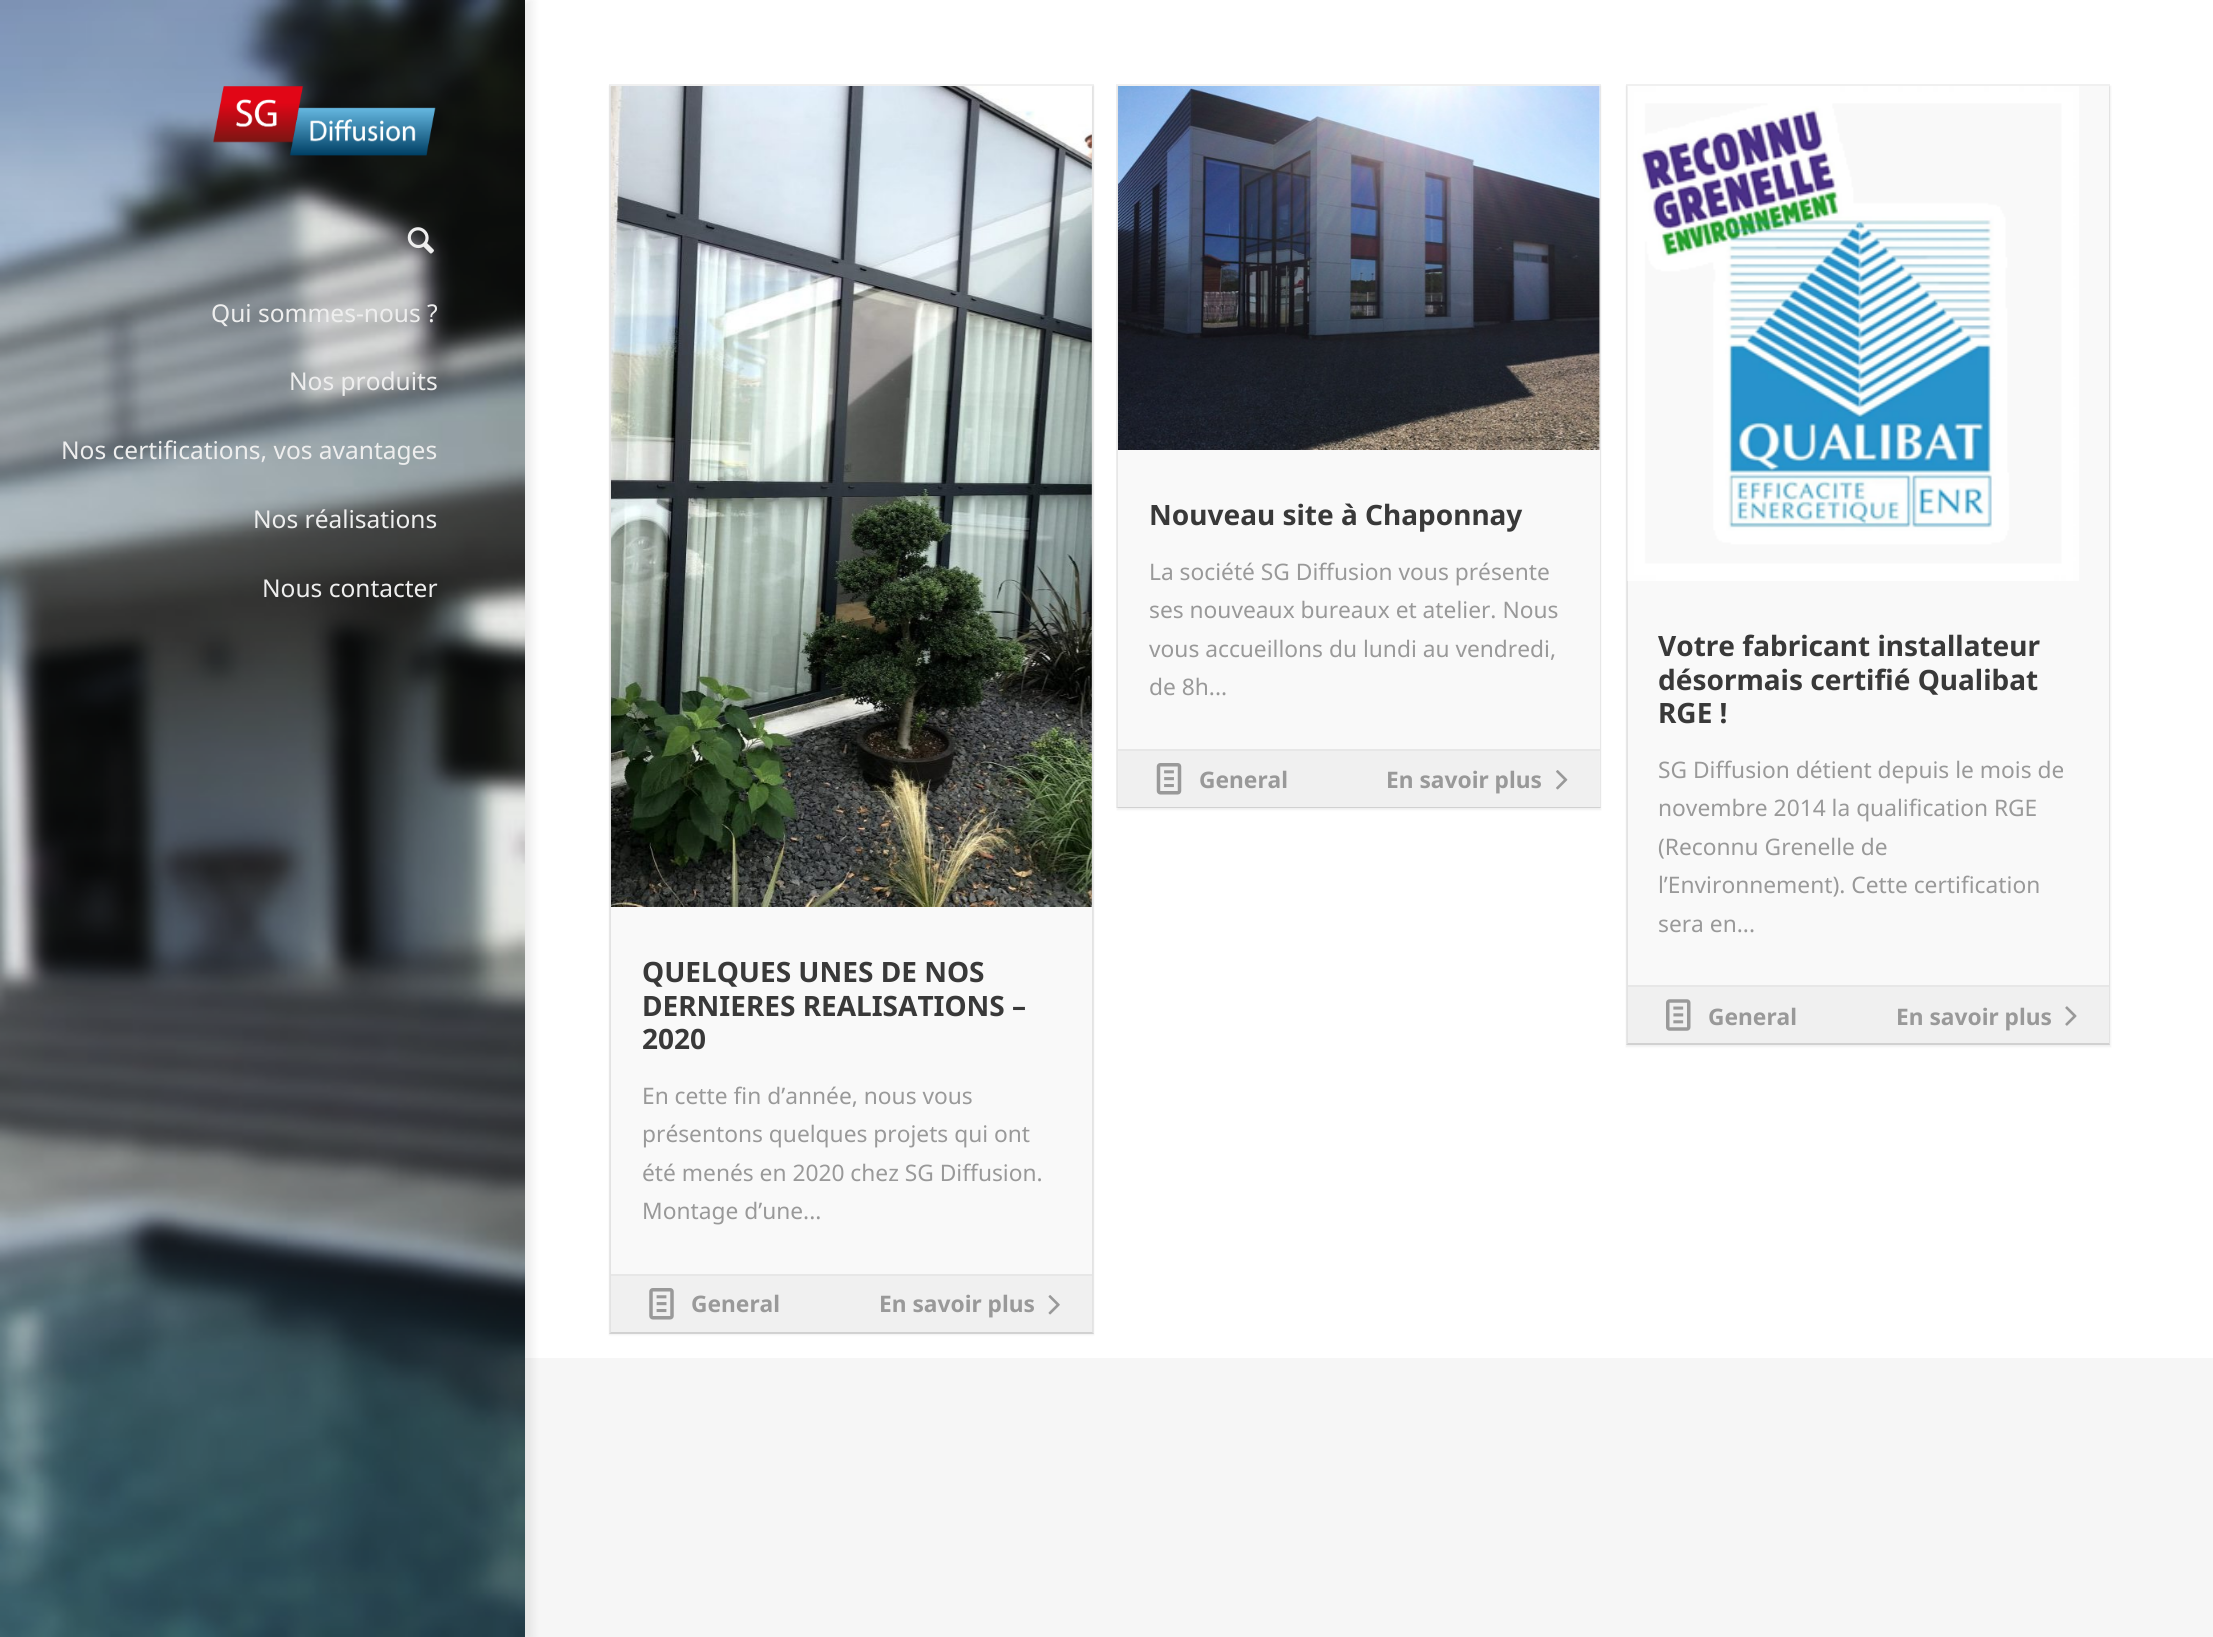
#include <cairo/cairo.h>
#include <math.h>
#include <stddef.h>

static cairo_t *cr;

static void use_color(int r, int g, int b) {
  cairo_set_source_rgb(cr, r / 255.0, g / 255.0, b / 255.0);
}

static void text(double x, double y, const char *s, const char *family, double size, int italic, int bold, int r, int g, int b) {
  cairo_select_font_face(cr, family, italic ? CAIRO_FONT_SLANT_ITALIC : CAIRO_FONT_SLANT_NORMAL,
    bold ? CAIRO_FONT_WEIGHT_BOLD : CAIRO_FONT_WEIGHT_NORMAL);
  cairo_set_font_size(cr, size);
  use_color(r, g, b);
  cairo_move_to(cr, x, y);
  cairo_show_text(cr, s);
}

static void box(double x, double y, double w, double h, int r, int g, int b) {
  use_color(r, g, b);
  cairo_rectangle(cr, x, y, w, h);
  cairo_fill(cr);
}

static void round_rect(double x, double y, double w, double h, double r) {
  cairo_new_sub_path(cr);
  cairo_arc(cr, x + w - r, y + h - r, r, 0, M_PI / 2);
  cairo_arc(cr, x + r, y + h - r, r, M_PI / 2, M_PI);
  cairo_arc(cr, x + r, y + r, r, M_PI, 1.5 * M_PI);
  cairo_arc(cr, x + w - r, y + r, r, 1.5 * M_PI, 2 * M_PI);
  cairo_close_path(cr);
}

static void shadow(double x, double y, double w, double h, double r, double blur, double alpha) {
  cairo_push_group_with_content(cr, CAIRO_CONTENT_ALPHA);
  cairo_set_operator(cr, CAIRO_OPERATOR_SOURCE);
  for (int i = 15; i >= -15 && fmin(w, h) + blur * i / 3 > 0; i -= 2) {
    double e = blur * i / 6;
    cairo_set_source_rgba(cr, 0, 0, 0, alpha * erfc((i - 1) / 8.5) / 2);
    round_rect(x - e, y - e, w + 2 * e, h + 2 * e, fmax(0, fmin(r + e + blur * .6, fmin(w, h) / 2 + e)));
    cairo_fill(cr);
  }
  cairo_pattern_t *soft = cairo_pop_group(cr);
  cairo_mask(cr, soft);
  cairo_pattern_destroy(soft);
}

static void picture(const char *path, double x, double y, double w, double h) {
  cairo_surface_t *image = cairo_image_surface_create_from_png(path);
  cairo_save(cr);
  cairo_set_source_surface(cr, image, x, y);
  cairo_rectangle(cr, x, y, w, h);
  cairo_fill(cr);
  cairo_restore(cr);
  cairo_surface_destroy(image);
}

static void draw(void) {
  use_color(246, 246, 246);
  cairo_paint(cr);
  box(525, 0, 1688, 1358, 255, 255, 255);
  use_color(0, 0, 0);
  shadow(7, 0, 525, 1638, 0, 5, 0.08);
  picture("img_01.png", 0, 0, 525, 1637);
  picture("img_02.png", 213, 86, 223, 70);
  picture("img_03.png", 407, 227, 27, 27);
  shadow(1117, 86, 484, 724, 0, 1, 0.06);
  box(1118, 86, 482, 663, 249, 249, 249);
  use_color(240, 240, 240);
  cairo_new_path(cr);
  cairo_move_to(cr, 1116, 84);
  cairo_line_to(cr, 1601, 84);
  cairo_line_to(cr, 1600, 86);
  cairo_line_to(cr, 1118, 86);
  cairo_close_path(cr);
  cairo_fill(cr);
  cairo_set_source_rgba(cr, 0, 0, 0, 0.06);
  cairo_new_path(cr);
  cairo_move_to(cr, 1601, 84);
  cairo_line_to(cr, 1601, 808);
  cairo_line_to(cr, 1600, 807);
  cairo_line_to(cr, 1600, 86);
  cairo_close_path(cr);
  cairo_fill(cr);
  cairo_set_source_rgba(cr, 0, 0, 0, 0.13);
  cairo_new_path(cr);
  cairo_move_to(cr, 1601, 808);
  cairo_line_to(cr, 1116, 808);
  cairo_line_to(cr, 1118, 807);
  cairo_line_to(cr, 1600, 807);
  cairo_close_path(cr);
  cairo_fill(cr);
  cairo_set_source_rgba(cr, 0, 0, 0, 0.06);
  cairo_new_path(cr);
  cairo_move_to(cr, 1116, 808);
  cairo_line_to(cr, 1116, 84);
  cairo_line_to(cr, 1118, 86);
  cairo_line_to(cr, 1118, 807);
  cairo_close_path(cr);
  cairo_fill(cr);
  picture("img_04.png", 1118, 86, 482, 364);
  box(1118, 749, 482, 2, 231, 231, 231);
  picture("img_05.png", 1156, 763, 26, 32);
  picture("img_06.png", 1556, 770, 12, 20);
  use_color(0, 0, 0);
  shadow(1626, 86, 485, 961, 0, 1, 0.06);
  box(1628, 86, 481, 899, 249, 249, 249);
  use_color(240, 240, 240);
  cairo_new_path(cr);
  cairo_move_to(cr, 1626, 84);
  cairo_line_to(cr, 2110, 84);
  cairo_line_to(cr, 2109, 86);
  cairo_line_to(cr, 1628, 86);
  cairo_close_path(cr);
  cairo_fill(cr);
  cairo_set_source_rgba(cr, 0, 0, 0, 0.06);
  cairo_new_path(cr);
  cairo_move_to(cr, 2110, 84);
  cairo_line_to(cr, 2110, 1045);
  cairo_line_to(cr, 2109, 1043);
  cairo_line_to(cr, 2109, 86);
  cairo_close_path(cr);
  cairo_fill(cr);
  cairo_set_source_rgba(cr, 0, 0, 0, 0.13);
  cairo_new_path(cr);
  cairo_move_to(cr, 2110, 1045);
  cairo_line_to(cr, 1626, 1045);
  cairo_line_to(cr, 1628, 1043);
  cairo_line_to(cr, 2109, 1043);
  cairo_close_path(cr);
  cairo_fill(cr);
  cairo_set_source_rgba(cr, 0, 0, 0, 0.06);
  cairo_new_path(cr);
  cairo_move_to(cr, 1626, 1045);
  cairo_line_to(cr, 1626, 84);
  cairo_line_to(cr, 1628, 86);
  cairo_line_to(cr, 1628, 1043);
  cairo_close_path(cr);
  cairo_fill(cr);
  picture("img_07.png", 1627, 86, 452, 495);
  box(1628, 985, 481, 2, 231, 231, 231);
  picture("img_08.png", 1666, 999, 25, 32);
  picture("img_09.png", 2065, 1006, 12, 20);
  use_color(0, 0, 0);
  shadow(609, 86, 485, 1249, 0, 1, 0.06);
  box(611, 86, 481, 1188, 249, 249, 249);
  use_color(240, 240, 240);
  cairo_new_path(cr);
  cairo_move_to(cr, 609, 84);
  cairo_line_to(cr, 1094, 84);
  cairo_line_to(cr, 1092, 86);
  cairo_line_to(cr, 611, 86);
  cairo_close_path(cr);
  cairo_fill(cr);
  cairo_set_source_rgba(cr, 0, 0, 0, 0.06);
  cairo_new_path(cr);
  cairo_move_to(cr, 1094, 84);
  cairo_line_to(cr, 1094, 1334);
  cairo_line_to(cr, 1092, 1332);
  cairo_line_to(cr, 1092, 86);
  cairo_close_path(cr);
  cairo_fill(cr);
  cairo_set_source_rgba(cr, 0, 0, 0, 0.13);
  cairo_new_path(cr);
  cairo_move_to(cr, 1094, 1334);
  cairo_line_to(cr, 609, 1334);
  cairo_line_to(cr, 611, 1332);
  cairo_line_to(cr, 1092, 1332);
  cairo_close_path(cr);
  cairo_fill(cr);
  cairo_set_source_rgba(cr, 0, 0, 0, 0.06);
  cairo_new_path(cr);
  cairo_move_to(cr, 609, 1334);
  cairo_line_to(cr, 609, 84);
  cairo_line_to(cr, 611, 86);
  cairo_line_to(cr, 611, 1332);
  cairo_close_path(cr);
  cairo_fill(cr);
  picture("img_10.png", 611, 86, 481, 821);
  box(611, 1274, 481, 2, 231, 231, 231);
  picture("img_11.png", 649, 1288, 25, 32);
  picture("img_12.png", 1048, 1295, 12, 20);
  text(211, 322, "Qui sommes-nous ?", "Noto Sans", 24.5, 0, 0, 238, 238, 238);
  text(289, 390, "Nos produits", "Noto Sans", 24.5, 0, 0, 238, 238, 238);
  text(61, 459, "Nos certifications, vos avantages", "Noto Sans", 24.5, 0, 0, 238, 238, 238);
  text(253, 528, "Nos réalisations", "Noto Sans", 24.5, 0, 0, 238, 238, 238);
  text(262, 597, "Nous contacter", "Noto Sans", 24.5, 0, 0, 238, 238, 238);
  text(1149, 525, "Nouveau site à Chaponnay", "Noto Sans", 28, 0, 1, 57, 57, 57);
  text(1149, 580, "La société SG Diffusion vous présente", "Noto Sans", 22.75, 0, 0, 153, 153, 153);
  text(1149, 618, "ses nouveaux bureaux et atelier. Nous", "Noto Sans", 22.75, 0, 0, 153, 153, 153);
  text(1149, 657, "vous accueillons du lundi au vendredi,", "Noto Sans", 22.75, 0, 0, 153, 153, 153);
  text(1149, 695, "de 8h...", "Noto Sans", 22.75, 0, 0, 153, 153, 153);
  text(1199, 788, "General", "Noto Sans", 22.75, 0, 1, 153, 153, 153);
  text(1386, 788, "En savoir plus", "Noto Sans", 22.75, 0, 1, 153, 153, 153);
  text(1658, 656, "Votre fabricant installateur", "Noto Sans", 28, 0, 1, 57, 57, 57);
  text(1658, 690, "désormais certifié Qualibat", "Noto Sans", 28, 0, 1, 57, 57, 57);
  text(1658, 723, "RGE !", "Noto Sans", 28, 0, 1, 57, 57, 57);
  text(1658, 778, "SG Diffusion détient depuis le mois de", "Noto Sans", 22.75, 0, 0, 153, 153, 153);
  text(1658, 816, "novembre 2014 la qualification RGE", "Noto Sans", 22.75, 0, 0, 153, 153, 153);
  text(1658, 855, "(Reconnu Grenelle de", "Noto Sans", 22.75, 0, 0, 153, 153, 153);
  text(1658, 893, "l’Environnement). Cette certification", "Noto Sans", 22.75, 0, 0, 153, 153, 153);
  text(1658, 932, "sera en...", "Noto Sans", 22.75, 0, 0, 153, 153, 153);
  text(1708, 1025, "General", "Noto Sans", 22.75, 0, 1, 153, 153, 153);
  text(1896, 1025, "En savoir plus", "Noto Sans", 22.75, 0, 1, 153, 153, 153);
  text(642, 982, "QUELQUES UNES DE NOS", "Noto Sans", 28, 0, 1, 57, 57, 57);
  text(642, 1016, "DERNIERES REALISATIONS –", "Noto Sans", 28, 0, 1, 57, 57, 57);
  text(642, 1049, "2020", "Noto Sans", 28, 0, 1, 57, 57, 57);
  text(642, 1104, "En cette fin d’année, nous vous", "Noto Sans", 22.75, 0, 0, 153, 153, 153);
  text(642, 1142, "présentons quelques projets qui ont", "Noto Sans", 22.75, 0, 0, 153, 153, 153);
  text(642, 1181, "été menés en 2020 chez SG Diffusion.", "Noto Sans", 22.75, 0, 0, 153, 153, 153);
  text(642, 1219, "Montage d’une...", "Noto Sans", 22.75, 0, 0, 153, 153, 153);
  text(691, 1312, "General", "Noto Sans", 22.75, 0, 1, 153, 153, 153);
  text(879, 1312, "En savoir plus", "Noto Sans", 22.75, 0, 1, 153, 153, 153);
}

int main(void) {
  cairo_surface_t *surface = cairo_image_surface_create(CAIRO_FORMAT_RGB24, 2213, 1637);
  cr = cairo_create(surface);
  cairo_font_options_t *options = cairo_font_options_create();
  cairo_font_options_set_hint_metrics(options, CAIRO_HINT_METRICS_OFF);
  cairo_font_options_set_hint_style(options, CAIRO_HINT_STYLE_NONE);
  cairo_set_font_options(cr, options);
  cairo_set_miter_limit(cr, 4);
  draw();
  cairo_surface_write_to_png(surface, "out.png");
  cairo_font_options_destroy(options);
  cairo_destroy(cr);
  cairo_surface_destroy(surface);
  return 0;
}
